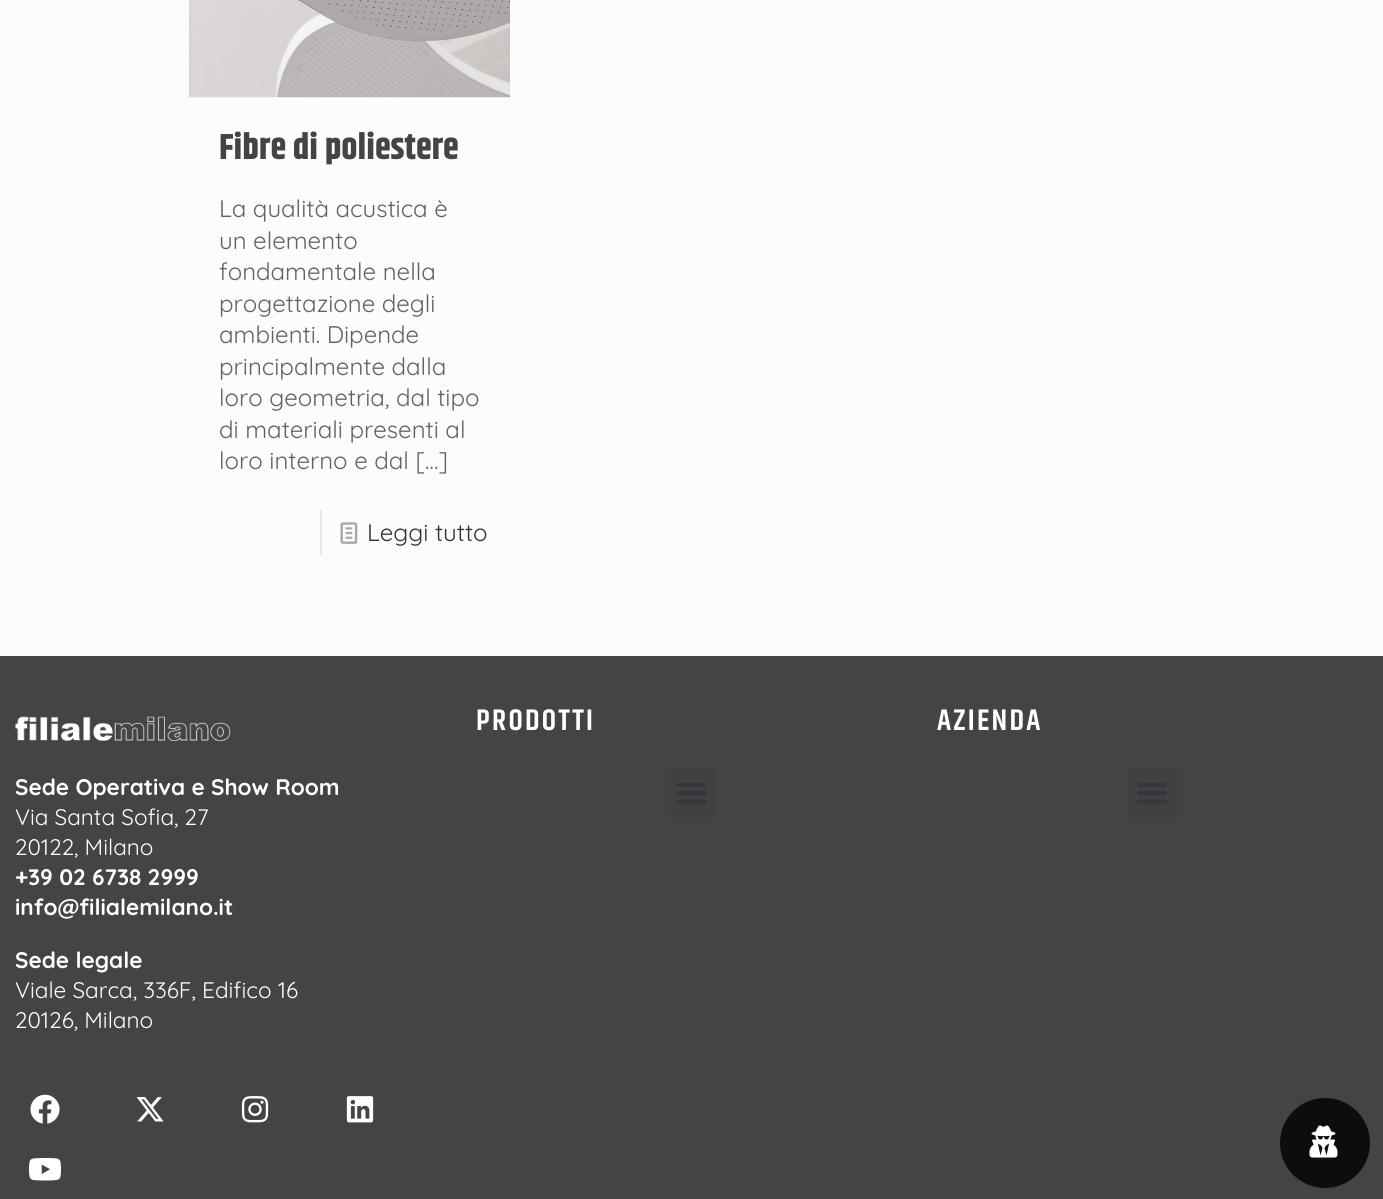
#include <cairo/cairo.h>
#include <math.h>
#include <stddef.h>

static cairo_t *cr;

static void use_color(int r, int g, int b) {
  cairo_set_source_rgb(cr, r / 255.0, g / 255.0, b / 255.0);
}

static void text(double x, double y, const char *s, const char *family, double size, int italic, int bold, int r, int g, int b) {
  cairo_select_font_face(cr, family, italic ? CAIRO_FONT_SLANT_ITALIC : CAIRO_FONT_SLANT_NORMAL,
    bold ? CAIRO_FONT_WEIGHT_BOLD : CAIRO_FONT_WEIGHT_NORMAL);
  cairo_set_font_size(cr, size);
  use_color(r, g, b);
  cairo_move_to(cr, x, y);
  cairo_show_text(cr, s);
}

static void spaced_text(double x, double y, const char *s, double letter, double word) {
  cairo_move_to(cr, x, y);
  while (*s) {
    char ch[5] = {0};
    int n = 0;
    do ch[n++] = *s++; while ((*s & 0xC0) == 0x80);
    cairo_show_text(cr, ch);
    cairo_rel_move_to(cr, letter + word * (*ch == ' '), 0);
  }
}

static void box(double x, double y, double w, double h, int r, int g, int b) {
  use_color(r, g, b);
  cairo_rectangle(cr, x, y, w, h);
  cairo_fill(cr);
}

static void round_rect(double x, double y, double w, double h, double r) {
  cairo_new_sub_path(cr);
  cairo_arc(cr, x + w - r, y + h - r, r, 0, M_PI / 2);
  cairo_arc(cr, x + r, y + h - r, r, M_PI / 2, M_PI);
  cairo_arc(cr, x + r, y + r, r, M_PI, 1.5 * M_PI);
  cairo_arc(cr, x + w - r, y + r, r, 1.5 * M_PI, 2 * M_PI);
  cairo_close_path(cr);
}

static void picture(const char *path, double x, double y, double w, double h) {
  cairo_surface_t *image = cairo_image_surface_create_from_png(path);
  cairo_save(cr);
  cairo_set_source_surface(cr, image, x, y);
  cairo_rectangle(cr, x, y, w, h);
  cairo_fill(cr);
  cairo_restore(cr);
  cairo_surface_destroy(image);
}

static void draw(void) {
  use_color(252, 252, 252);
  cairo_paint(cr);
  picture("img_01.png", 189, 0, 321, 98);
  box(320, 510, 2, 45, 232, 232, 232);
  picture("img_02.png", 340, 522, 18, 22);
  box(0, 656, 1383, 543, 68, 68, 68);
  use_color(65, 65, 65);
  round_rect(666, 768, 51, 50, 5);
  cairo_fill(cr);
  picture("img_03.png", 676, 783, 31, 21);
  round_rect(1128, 768, 50, 50, 5);
  cairo_fill(cr);
  picture("img_04.png", 1137, 783, 30, 21);
  picture("img_05.png", 15, 716, 216, 25);
  picture("img_06.png", 30, 1094, 30, 30);
  picture("img_07.png", 136, 1097, 28, 25);
  picture("img_08.png", 241, 1096, 28, 27);
  picture("img_09.png", 346, 1096, 28, 27);
  picture("img_10.png", 29, 1158, 32, 23);
  use_color(13, 13, 13);
  cairo_arc(cr, 1325, 1143, 45, 0, 2 * M_PI);
  cairo_fill(cr);
  picture("img_11.png", 1309, 1125, 29, 33);
  text(219, 159, "Fibre di poliestere", "Khand", 36, 0, 1, 68, 68, 68);
  text(219, 217, "La qualità acustica è", "Quicksand", 24, 0, 0, 98, 98, 98);
  text(219, 249, "un elemento", "Quicksand", 24, 0, 0, 98, 98, 98);
  text(219, 280, "fondamentale nella", "Quicksand", 24, 0, 0, 98, 98, 98);
  text(219, 312, "progettazione degli", "Quicksand", 24, 0, 0, 98, 98, 98);
  text(219, 343, "ambienti. Dipende", "Quicksand", 24, 0, 0, 98, 98, 98);
  text(219, 375, "principalmente dalla", "Quicksand", 24, 0, 0, 98, 98, 98);
  text(219, 406, "loro geometria, dal tipo", "Quicksand", 24, 0, 0, 98, 98, 98);
  text(219, 438, "di materiali presenti al", "Quicksand", 24, 0, 0, 98, 98, 98);
  text(219, 469, "loro interno e dal […]", "Quicksand", 24, 0, 0, 98, 98, 98);
  text(367, 541, "Leggi tutto", "Quicksand", 24, 0, 0, 49, 49, 49);
  cairo_select_font_face(cr, "Khand SemiBold", CAIRO_FONT_SLANT_NORMAL, CAIRO_FONT_WEIGHT_NORMAL);
  cairo_set_font_size(cr, 30);
  use_color(255, 255, 255);
  spaced_text(476, 730, "PRODOTTI", 2.25, 0);
  spaced_text(937, 730, "AZIENDA", 2.25, 0);
  text(15, 795, "Sede Operativa e Show Room", "Quicksand", 22.5, 0, 1, 255, 255, 255);
  text(15, 825, "Via Santa Sofia, 27", "Quicksand", 22.5, 0, 0, 255, 255, 255);
  text(15, 855, "20122, Milano", "Quicksand", 22.5, 0, 0, 255, 255, 255);
  text(15, 885, "+39 02 6738 2999", "Quicksand", 22.5, 0, 1, 255, 255, 255);
  text(15, 915, "info@filialemilano.it", "Quicksand", 22.5, 0, 1, 255, 255, 255);
  text(15, 968, "Sede legale", "Quicksand", 22.5, 0, 1, 255, 255, 255);
  text(15, 998, "Viale Sarca, 336F, Edifico 16", "Quicksand", 22.5, 0, 0, 255, 255, 255);
  text(15, 1028, "20126, Milano", "Quicksand", 22.5, 0, 0, 255, 255, 255);
}

int main(void) {
  cairo_surface_t *surface = cairo_image_surface_create(CAIRO_FORMAT_RGB24, 1383, 1199);
  cr = cairo_create(surface);
  cairo_font_options_t *options = cairo_font_options_create();
  cairo_font_options_set_hint_metrics(options, CAIRO_HINT_METRICS_OFF);
  cairo_font_options_set_hint_style(options, CAIRO_HINT_STYLE_NONE);
  cairo_set_font_options(cr, options);
  cairo_set_miter_limit(cr, 4);
  draw();
  cairo_surface_write_to_png(surface, "out.png");
  cairo_font_options_destroy(options);
  cairo_destroy(cr);
  cairo_surface_destroy(surface);
  return 0;
}
